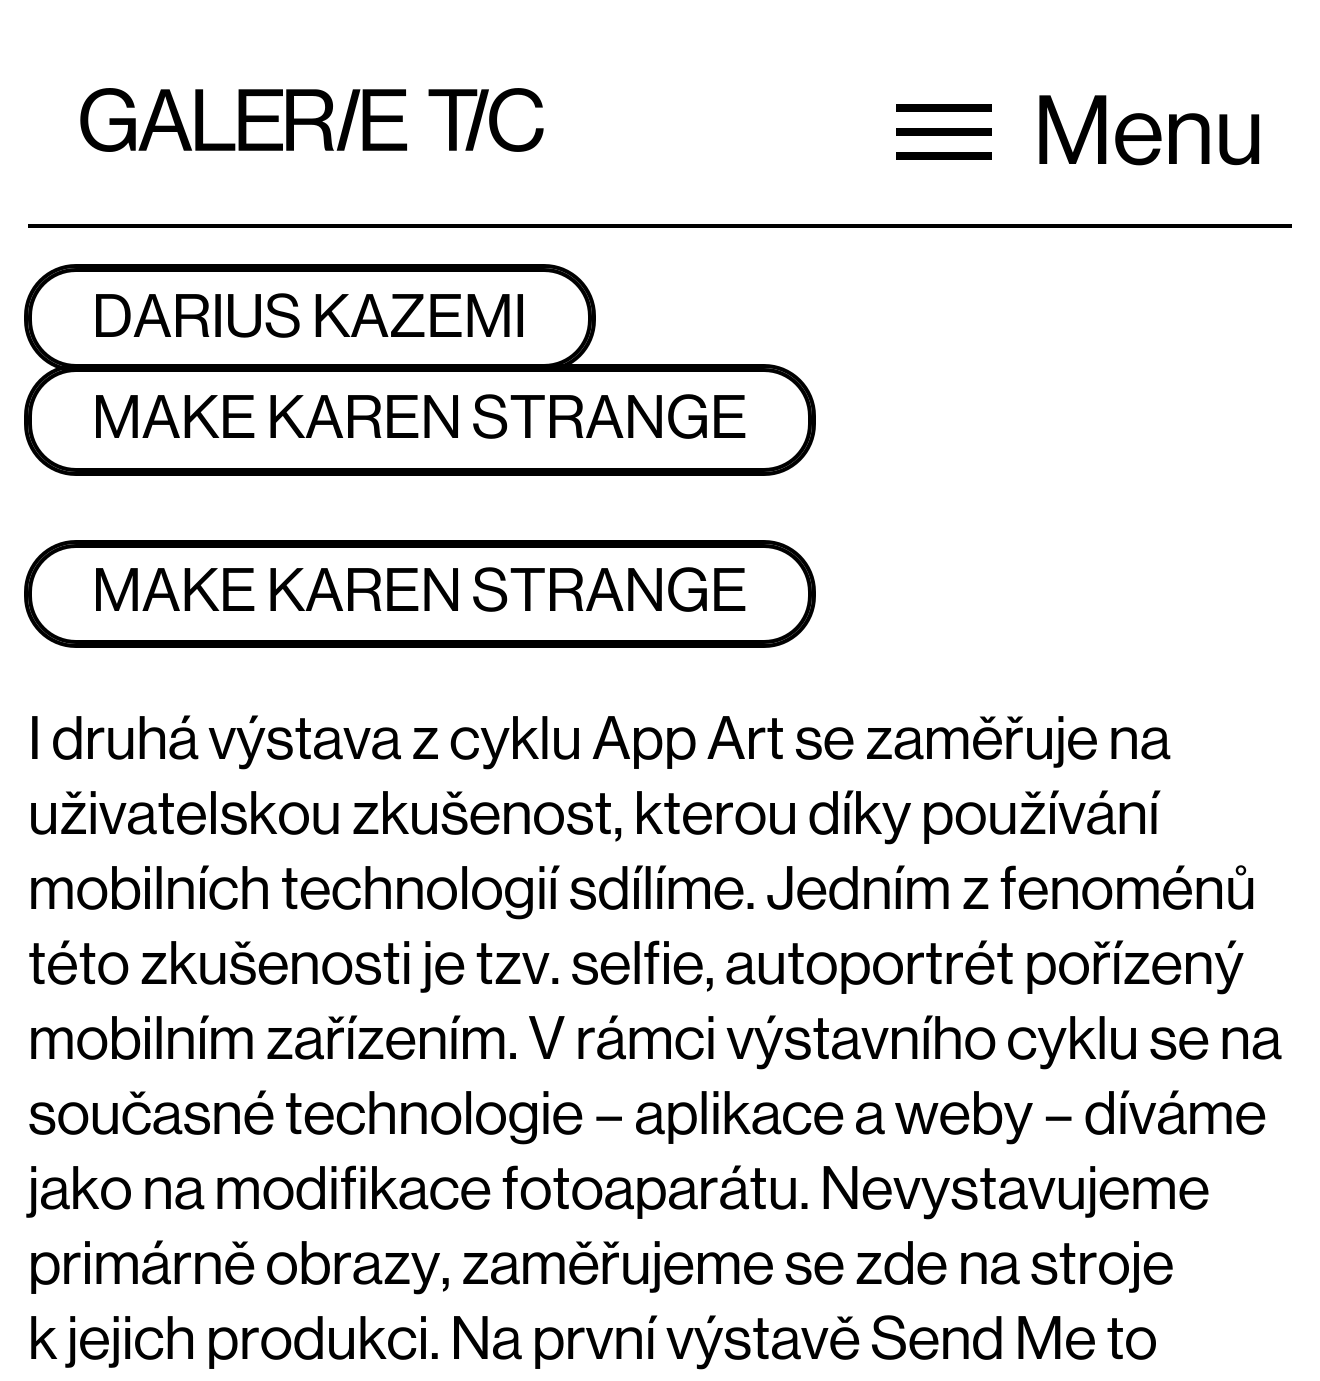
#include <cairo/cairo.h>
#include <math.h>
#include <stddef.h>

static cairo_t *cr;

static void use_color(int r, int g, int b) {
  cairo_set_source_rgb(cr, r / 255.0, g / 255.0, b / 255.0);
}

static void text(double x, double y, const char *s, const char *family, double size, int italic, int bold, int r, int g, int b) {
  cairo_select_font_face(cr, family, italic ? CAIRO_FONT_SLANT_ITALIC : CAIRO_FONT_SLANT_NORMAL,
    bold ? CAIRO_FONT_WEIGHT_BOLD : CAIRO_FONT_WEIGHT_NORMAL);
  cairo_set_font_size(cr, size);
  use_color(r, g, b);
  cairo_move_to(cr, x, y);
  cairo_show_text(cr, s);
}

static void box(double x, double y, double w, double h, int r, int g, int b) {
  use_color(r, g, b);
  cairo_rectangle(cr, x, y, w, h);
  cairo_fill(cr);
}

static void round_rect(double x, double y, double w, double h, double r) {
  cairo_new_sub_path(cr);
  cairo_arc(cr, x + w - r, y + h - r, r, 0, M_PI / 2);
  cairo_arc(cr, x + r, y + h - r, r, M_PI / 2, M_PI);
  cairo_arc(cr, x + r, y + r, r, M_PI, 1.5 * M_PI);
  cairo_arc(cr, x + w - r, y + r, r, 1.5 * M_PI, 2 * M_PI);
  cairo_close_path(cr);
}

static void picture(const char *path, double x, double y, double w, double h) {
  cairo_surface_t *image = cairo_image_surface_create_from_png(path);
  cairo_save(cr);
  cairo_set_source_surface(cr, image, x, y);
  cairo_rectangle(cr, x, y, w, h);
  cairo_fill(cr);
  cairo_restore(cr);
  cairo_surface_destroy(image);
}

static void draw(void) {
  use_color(255, 255, 255);
  cairo_paint(cr);
  picture("img_01.png", 80, 88, 464, 64);
  box(896, 104, 96, 8, 0, 0, 0);
  box(896, 128, 96, 8, 0, 0, 0);
  box(896, 152, 96, 8, 0, 0, 0);
  box(28, 224, 1264, 4, 0, 0, 0);
  round_rect(26, 266, 568, 104, 50);
  cairo_set_line_width(cr, 4);
  cairo_stroke(cr);
  use_color(255, 255, 255);
  round_rect(30, 270, 560, 96, 46);
  cairo_fill_preserve(cr);
  use_color(0, 0, 0);
  cairo_stroke(cr);
  round_rect(26, 366, 788, 108, 50);
  cairo_stroke(cr);
  use_color(255, 255, 255);
  round_rect(30, 370, 780, 100, 46);
  cairo_fill_preserve(cr);
  use_color(0, 0, 0);
  cairo_stroke(cr);
  round_rect(26, 542, 788, 104, 50);
  cairo_stroke(cr);
  use_color(255, 255, 255);
  round_rect(30, 546, 780, 96, 46);
  cairo_fill_preserve(cr);
  use_color(0, 0, 0);
  cairo_stroke(cr);
  text(1033, 164, "Menu", "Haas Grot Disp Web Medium", 96, 0, 0, 0, 0, 0);
  text(92, 337, "DARIUS KAZEMI", "Haas Grot Disp Web Medium", 60, 0, 0, 0, 0, 0);
  text(92, 438, "MAKE KAREN STRANGE", "Haas Grot Disp Web Medium", 60, 0, 0, 0, 0, 0);
  text(92, 611, "MAKE KAREN STRANGE", "Haas Grot Disp Web Medium", 60, 0, 0, 0, 0, 0);
  text(28, 759, "I druhá výstava z cyklu App Art se zaměřuje na", "Haas Grot Disp Web Medium", 60, 0, 0, 0, 0, 0);
  text(28, 834, "uživatelskou zkušenost, kterou díky používání", "Haas Grot Disp Web Medium", 60, 0, 0, 0, 0, 0);
  text(28, 909, "mobilních technologií sdílíme. Jedním z fenoménů", "Haas Grot Disp Web Medium", 60, 0, 0, 0, 0, 0);
  text(28, 984, "této zkušenosti je tzv. selfie, autoportrét pořízený", "Haas Grot Disp Web Medium", 60, 0, 0, 0, 0, 0);
  text(28, 1059, "mobilním zařízením. V rámci výstavního cyklu se na", "Haas Grot Disp Web Medium", 60, 0, 0, 0, 0, 0);
  text(28, 1134, "současné technologie – aplikace a weby – díváme", "Haas Grot Disp Web Medium", 60, 0, 0, 0, 0, 0);
  text(28, 1209, "jako na modifikace fotoaparátu. Nevystavujeme", "Haas Grot Disp Web Medium", 60, 0, 0, 0, 0, 0);
  text(28, 1284, "primárně obrazy, zaměřujeme se zde na stroje", "Haas Grot Disp Web Medium", 60, 0, 0, 0, 0, 0);
  text(28, 1359, "k jejich produkci. Na první výstavě Send Me to", "Haas Grot Disp Web Medium", 60, 0, 0, 0, 0, 0);
}

int main(void) {
  cairo_surface_t *surface = cairo_image_surface_create(CAIRO_FORMAT_RGB24, 1320, 1381);
  cr = cairo_create(surface);
  cairo_font_options_t *options = cairo_font_options_create();
  cairo_font_options_set_hint_metrics(options, CAIRO_HINT_METRICS_OFF);
  cairo_font_options_set_hint_style(options, CAIRO_HINT_STYLE_NONE);
  cairo_set_font_options(cr, options);
  cairo_set_miter_limit(cr, 4);
  draw();
  cairo_surface_write_to_png(surface, "out.png");
  cairo_font_options_destroy(options);
  cairo_destroy(cr);
  cairo_surface_destroy(surface);
  return 0;
}
